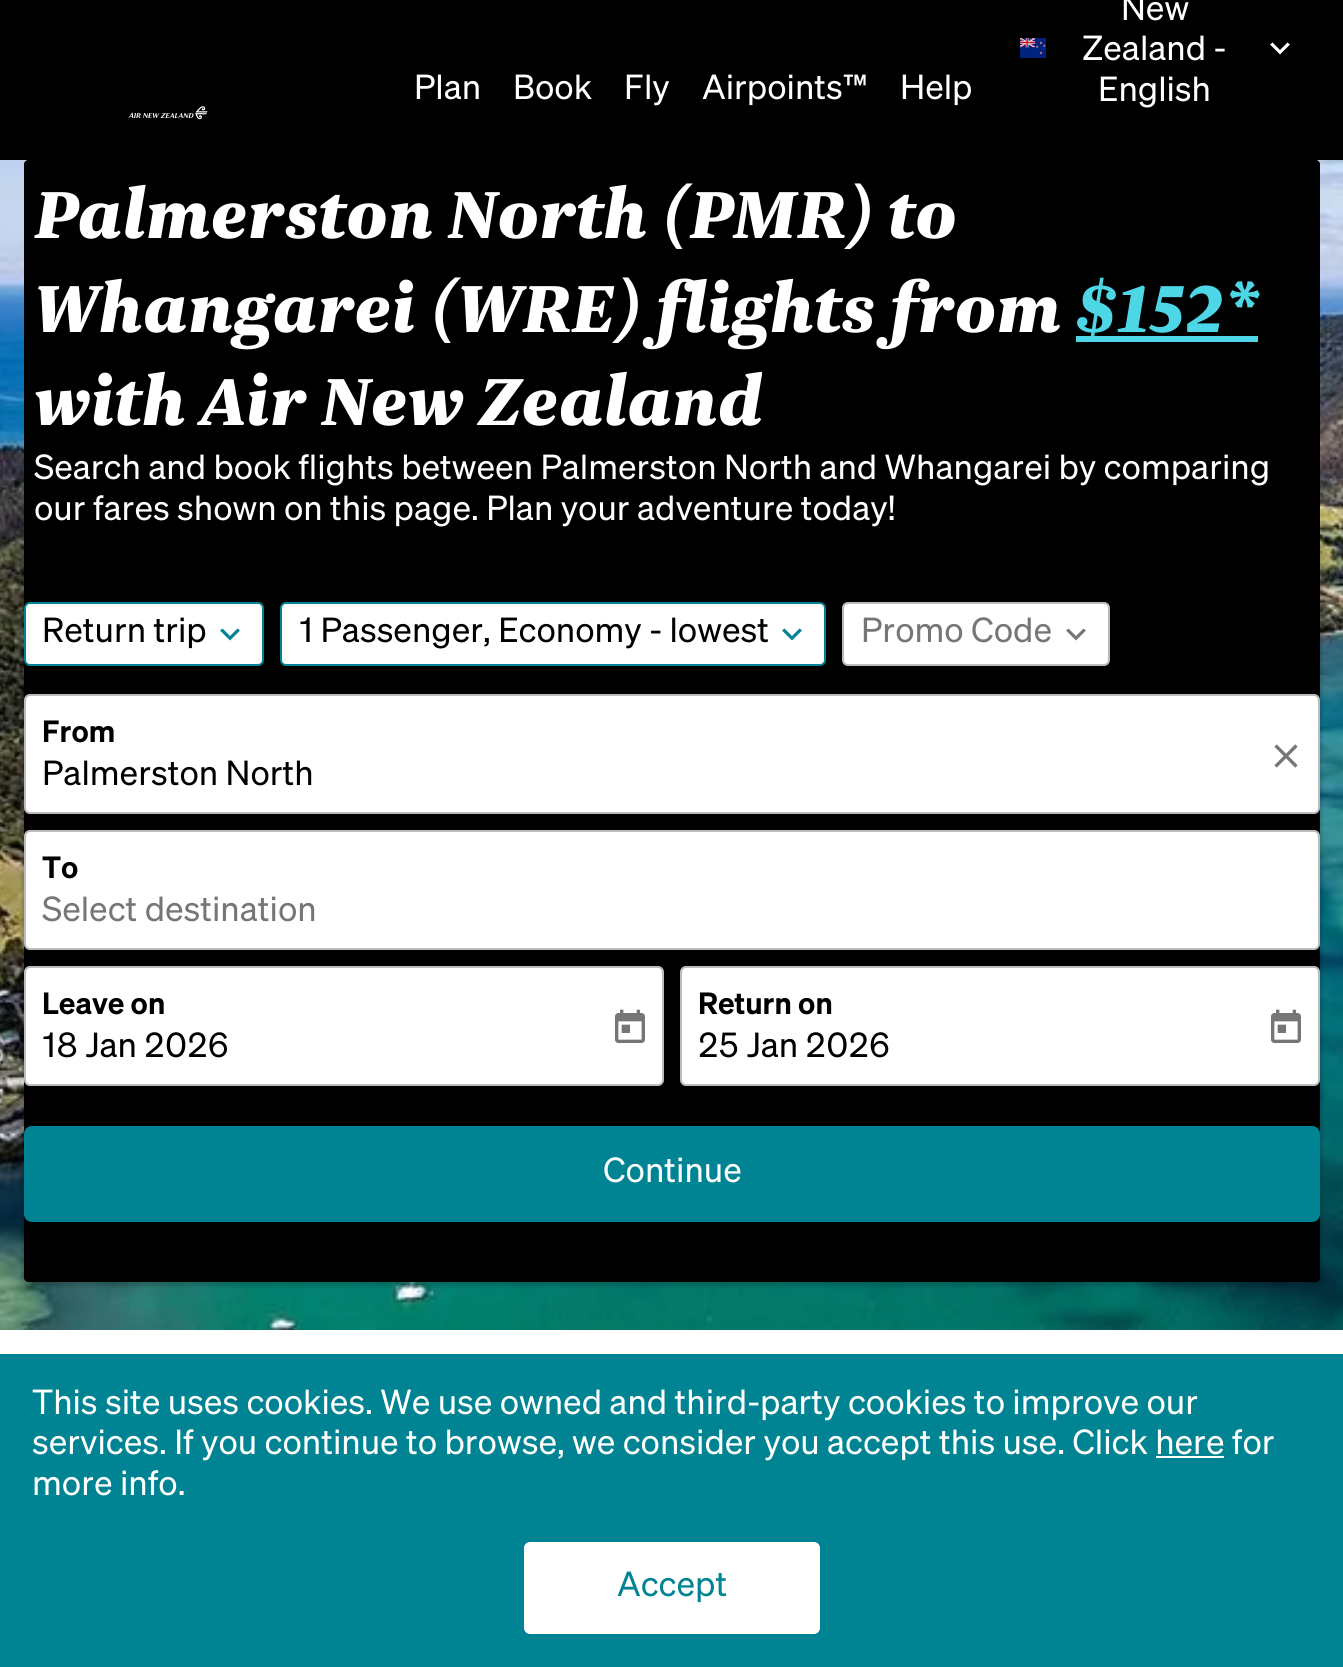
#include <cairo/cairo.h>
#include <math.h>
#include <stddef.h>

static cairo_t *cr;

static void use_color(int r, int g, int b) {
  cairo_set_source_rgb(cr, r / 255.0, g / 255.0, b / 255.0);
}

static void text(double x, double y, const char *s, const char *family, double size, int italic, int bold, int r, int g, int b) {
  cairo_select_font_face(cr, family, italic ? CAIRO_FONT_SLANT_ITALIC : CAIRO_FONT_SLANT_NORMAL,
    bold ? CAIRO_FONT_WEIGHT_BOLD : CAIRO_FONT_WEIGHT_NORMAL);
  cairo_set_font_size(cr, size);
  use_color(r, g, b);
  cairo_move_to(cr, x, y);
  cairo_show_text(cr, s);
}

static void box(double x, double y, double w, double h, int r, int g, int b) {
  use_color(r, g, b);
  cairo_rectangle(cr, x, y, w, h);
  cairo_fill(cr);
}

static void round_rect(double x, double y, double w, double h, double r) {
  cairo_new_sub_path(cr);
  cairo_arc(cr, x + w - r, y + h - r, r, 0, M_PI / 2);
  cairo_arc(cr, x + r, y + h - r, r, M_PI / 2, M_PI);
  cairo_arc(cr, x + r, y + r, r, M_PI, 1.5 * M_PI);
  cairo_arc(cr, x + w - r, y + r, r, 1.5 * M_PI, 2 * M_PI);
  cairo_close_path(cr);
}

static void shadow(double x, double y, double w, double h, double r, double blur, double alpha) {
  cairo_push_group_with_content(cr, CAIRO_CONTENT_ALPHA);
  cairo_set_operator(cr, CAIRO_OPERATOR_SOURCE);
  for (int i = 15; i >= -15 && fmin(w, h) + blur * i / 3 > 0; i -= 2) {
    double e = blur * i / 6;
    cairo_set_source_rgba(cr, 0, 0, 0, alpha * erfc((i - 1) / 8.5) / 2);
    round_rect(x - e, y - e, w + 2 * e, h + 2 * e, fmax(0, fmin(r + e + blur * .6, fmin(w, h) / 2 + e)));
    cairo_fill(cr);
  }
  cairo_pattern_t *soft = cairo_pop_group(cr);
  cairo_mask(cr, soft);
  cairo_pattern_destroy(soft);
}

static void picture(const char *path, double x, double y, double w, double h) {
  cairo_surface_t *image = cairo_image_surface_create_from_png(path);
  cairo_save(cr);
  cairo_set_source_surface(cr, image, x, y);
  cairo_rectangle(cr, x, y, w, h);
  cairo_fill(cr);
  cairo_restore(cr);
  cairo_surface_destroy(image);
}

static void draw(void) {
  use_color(0, 0, 0);
  cairo_paint(cr);
  picture("img_01.png", 1020, 38, 26, 20);
  use_color(255, 255, 255);
  cairo_new_path(cr);
  cairo_move_to(cr, 1272.5, 42.5);
  cairo_line_to(cr, 1280, 50);
  cairo_line_to(cr, 1287.5, 42.5);
  cairo_line_to(cr, 1290, 44.5);
  cairo_line_to(cr, 1280, 54.5);
  cairo_line_to(cr, 1270, 44.5);
  cairo_close_path(cr);
  cairo_fill(cr);
  picture("img_02.png", 128, 106, 80, 14);
  box(0, 1330, 1343, 24, 255, 255, 255);
  picture("img_03.png", 0, 160, 1343, 1170);
  use_color(0, 0, 0);
  shadow(22, 542, 1300, 744, 6, 2, 0.18);
  use_color(0, 0, 0);
  cairo_new_path(cr);
  cairo_move_to(cr, 28, 160);
  cairo_line_to(cr, 1316, 160);
  cairo_curve_to(cr, 1318, 160, 1320, 162, 1320, 164);
  cairo_line_to(cr, 1320, 542);
  cairo_line_to(cr, 24, 542);
  cairo_line_to(cr, 24, 164);
  cairo_curve_to(cr, 24, 162, 26, 160, 28, 160);
  cairo_close_path(cr);
  cairo_fill(cr);
  box(1076, 336, 182, 6, 76, 214, 230);
  use_color(0, 0, 0);
  cairo_new_path(cr);
  cairo_move_to(cr, 24, 542);
  cairo_line_to(cr, 1320, 542);
  cairo_line_to(cr, 1320, 1278);
  cairo_curve_to(cr, 1320, 1280, 1318, 1282, 1316, 1282);
  cairo_line_to(cr, 28, 1282);
  cairo_curve_to(cr, 26, 1282, 24, 1280, 24, 1278);
  cairo_close_path(cr);
  cairo_fill(cr);
  use_color(255, 255, 255);
  round_rect(25, 603, 238, 62, 5);
  cairo_fill_preserve(cr);
  use_color(0, 131, 146);
  cairo_stroke(cr);
  cairo_new_path(cr);
  cairo_move_to(cr, 237.5, 628.5);
  cairo_line_to(cr, 240, 630.5);
  cairo_line_to(cr, 230, 640.5);
  cairo_line_to(cr, 220, 630.5);
  cairo_line_to(cr, 222.5, 628.5);
  cairo_line_to(cr, 230, 636);
  cairo_close_path(cr);
  cairo_fill(cr);
  use_color(255, 255, 255);
  round_rect(281, 603, 544, 62, 5);
  cairo_fill_preserve(cr);
  use_color(0, 131, 146);
  cairo_stroke(cr);
  cairo_new_path(cr);
  cairo_move_to(cr, 799.5, 628.5);
  cairo_line_to(cr, 802, 630.5);
  cairo_line_to(cr, 792, 640.5);
  cairo_line_to(cr, 782, 630.5);
  cairo_line_to(cr, 784.5, 628.5);
  cairo_line_to(cr, 792, 636);
  cairo_close_path(cr);
  cairo_fill(cr);
  use_color(255, 255, 255);
  round_rect(843, 603, 266, 62, 5);
  cairo_fill_preserve(cr);
  use_color(187, 187, 187);
  cairo_stroke(cr);
  use_color(118, 118, 118);
  cairo_new_path(cr);
  cairo_move_to(cr, 1083.5, 628.5);
  cairo_line_to(cr, 1086, 630.5);
  cairo_line_to(cr, 1076, 640.5);
  cairo_line_to(cr, 1066, 630.5);
  cairo_line_to(cr, 1068.5, 628.5);
  cairo_line_to(cr, 1076, 636);
  cairo_close_path(cr);
  cairo_fill(cr);
  use_color(255, 255, 255);
  round_rect(25, 695, 1294, 118, 5);
  cairo_fill_preserve(cr);
  use_color(187, 187, 187);
  cairo_stroke(cr);
  picture("img_04.png", 1274, 744, 24, 24);
  use_color(255, 255, 255);
  round_rect(25, 831, 1294, 118, 5);
  cairo_fill_preserve(cr);
  use_color(187, 187, 187);
  cairo_stroke(cr);
  use_color(255, 255, 255);
  round_rect(25, 967, 638, 118, 5);
  cairo_fill_preserve(cr);
  use_color(187, 187, 187);
  cairo_stroke(cr);
  picture("img_05.png", 615, 1009, 30, 34);
  use_color(255, 255, 255);
  round_rect(681, 967, 638, 118, 5);
  cairo_fill_preserve(cr);
  use_color(187, 187, 187);
  cairo_stroke(cr);
  picture("img_05.png", 1271, 1009, 30, 34);
  use_color(0, 131, 146);
  round_rect(25, 1127, 1294, 94, 7);
  cairo_fill_preserve(cr);
  cairo_stroke(cr);
  box(0, 1354, 1343, 313, 0, 131, 146);
  box(1156, 1456, 68, 2, 255, 255, 255);
  round_rect(523, 1541, 298, 94, 7);
  cairo_fill_preserve(cr);
  use_color(0, 131, 146);
  cairo_stroke(cr);
  text(414, 99, "Plan", "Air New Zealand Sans", 34, 0, 0, 255, 255, 255);
  text(513, 99, "Book", "Air New Zealand Sans", 34, 0, 0, 255, 255, 255);
  text(624, 99, "Fly", "Air New Zealand Sans", 34, 0, 0, 255, 255, 255);
  text(702, 99, "Airpoints™", "Air New Zealand Sans", 34, 0, 0, 255, 255, 255);
  text(900, 99, "Help", "Air New Zealand Sans", 34, 0, 0, 255, 255, 255);
  text(1121, 20, "New", "Air New Zealand Sans", 34, 0, 0, 255, 255, 255);
  text(1082, 60, "Zealand -", "Air New Zealand Sans", 34, 0, 0, 255, 255, 255);
  text(1098, 101, "English", "Air New Zealand Sans", 34, 0, 0, 255, 255, 255);
  text(34, 238, "Palmerston North (PMR) to", "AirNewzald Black", 78, 1, 0, 255, 255, 255);
  text(34, 332, "Whangarei (WRE) flights from", "AirNewzald Black", 78, 1, 0, 255, 255, 255);
  text(1075, 332, "$152*", "AirNewzald Black", 78, 1, 0, 76, 214, 230);
  text(34, 425, "with Air New Zealand", "AirNewzald Black", 78, 1, 0, 255, 255, 255);
  text(34, 479, "Search and book flights between Palmerston North and Whangarei by comparing", "Air New Zealand Sans", 34, 0, 0, 255, 255, 255);
  text(34, 520, "our fares shown on this page. Plan your adventure today!", "Air New Zealand Sans", 34, 0, 0, 255, 255, 255);
  text(42, 642, "Return trip", "Air New Zealand Sans", 34, 0, 0, 0, 0, 0);
  text(299, 642, "1 Passenger, Economy - lowest", "Air New Zealand Sans", 34, 0, 0, 0, 0, 0);
  text(861, 642, "Promo Code", "Air New Zealand Sans", 34, 0, 0, 118, 118, 118);
  text(42, 742, "From", "Air New Zealand Sans SemiBold", 30, 0, 0, 0, 0, 0);
  text(42, 785, "Palmerston North", "Air New Zealand Sans", 34, 0, 0, 0, 0, 0);
  text(42, 878, "To", "Air New Zealand Sans SemiBold", 30, 0, 0, 0, 0, 0);
  text(42, 921, "Select destination", "Air New Zealand Sans", 34, 0, 0, 118, 118, 118);
  text(42, 1014, "Leave on", "Air New Zealand Sans SemiBold", 30, 0, 0, 0, 0, 0);
  text(42, 1057, "18 Jan 2026", "Air New Zealand Sans", 34, 0, 0, 0, 0, 0);
  text(698, 1014, "Return on", "Air New Zealand Sans SemiBold", 30, 0, 0, 0, 0, 0);
  text(698, 1057, "25 Jan 2026", "Air New Zealand Sans", 34, 0, 0, 0, 0, 0);
  text(603, 1182, "Continue", "Air New Zealand Sans", 34, 0, 0, 255, 255, 255);
  text(32, 1414, "This site uses cookies. We use owned and third-party cookies to improve our", "Air New Zealand Sans", 34, 0, 0, 255, 255, 255);
  text(32, 1454, "services. If you continue to browse, we consider you accept this use. Click here for", "Air New Zealand Sans", 34, 0, 0, 255, 255, 255);
  text(32, 1495, "more info.", "Air New Zealand Sans", 34, 0, 0, 255, 255, 255);
  text(617, 1596, "Accept", "Air New Zealand Sans", 34, 0, 0, 0, 131, 146);
}

int main(void) {
  cairo_surface_t *surface = cairo_image_surface_create(CAIRO_FORMAT_RGB24, 1343, 1667);
  cr = cairo_create(surface);
  cairo_font_options_t *options = cairo_font_options_create();
  cairo_font_options_set_hint_metrics(options, CAIRO_HINT_METRICS_OFF);
  cairo_font_options_set_hint_style(options, CAIRO_HINT_STYLE_NONE);
  cairo_set_font_options(cr, options);
  cairo_set_miter_limit(cr, 4);
  draw();
  cairo_surface_write_to_png(surface, "out.png");
  cairo_font_options_destroy(options);
  cairo_destroy(cr);
  cairo_surface_destroy(surface);
  return 0;
}
